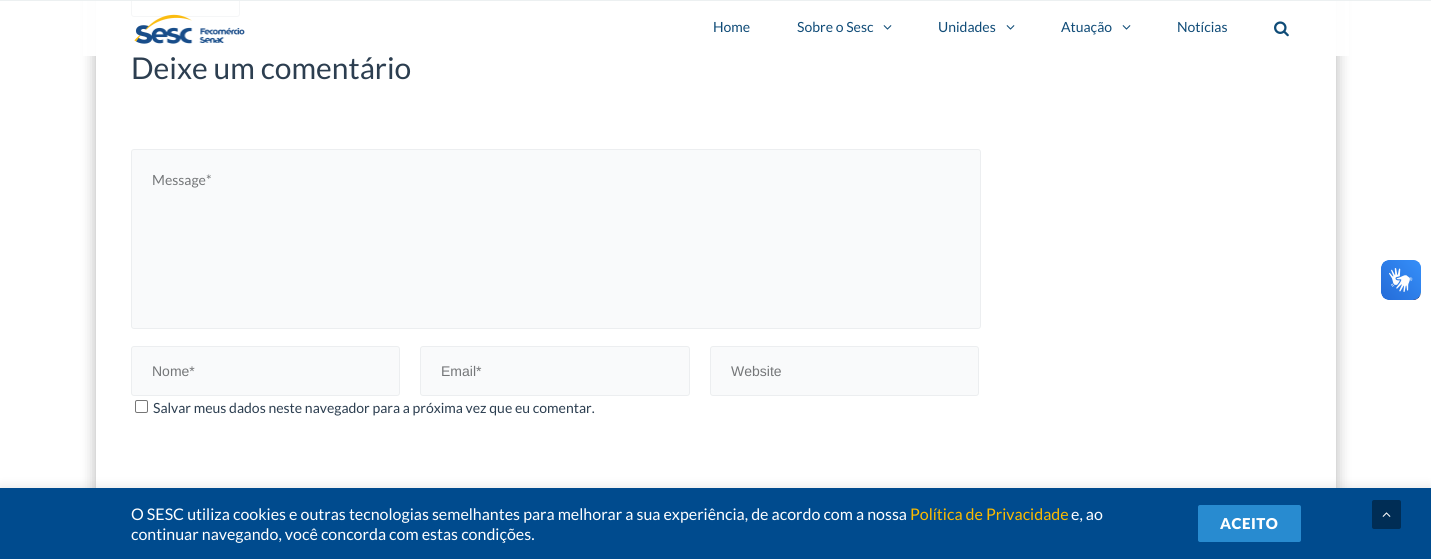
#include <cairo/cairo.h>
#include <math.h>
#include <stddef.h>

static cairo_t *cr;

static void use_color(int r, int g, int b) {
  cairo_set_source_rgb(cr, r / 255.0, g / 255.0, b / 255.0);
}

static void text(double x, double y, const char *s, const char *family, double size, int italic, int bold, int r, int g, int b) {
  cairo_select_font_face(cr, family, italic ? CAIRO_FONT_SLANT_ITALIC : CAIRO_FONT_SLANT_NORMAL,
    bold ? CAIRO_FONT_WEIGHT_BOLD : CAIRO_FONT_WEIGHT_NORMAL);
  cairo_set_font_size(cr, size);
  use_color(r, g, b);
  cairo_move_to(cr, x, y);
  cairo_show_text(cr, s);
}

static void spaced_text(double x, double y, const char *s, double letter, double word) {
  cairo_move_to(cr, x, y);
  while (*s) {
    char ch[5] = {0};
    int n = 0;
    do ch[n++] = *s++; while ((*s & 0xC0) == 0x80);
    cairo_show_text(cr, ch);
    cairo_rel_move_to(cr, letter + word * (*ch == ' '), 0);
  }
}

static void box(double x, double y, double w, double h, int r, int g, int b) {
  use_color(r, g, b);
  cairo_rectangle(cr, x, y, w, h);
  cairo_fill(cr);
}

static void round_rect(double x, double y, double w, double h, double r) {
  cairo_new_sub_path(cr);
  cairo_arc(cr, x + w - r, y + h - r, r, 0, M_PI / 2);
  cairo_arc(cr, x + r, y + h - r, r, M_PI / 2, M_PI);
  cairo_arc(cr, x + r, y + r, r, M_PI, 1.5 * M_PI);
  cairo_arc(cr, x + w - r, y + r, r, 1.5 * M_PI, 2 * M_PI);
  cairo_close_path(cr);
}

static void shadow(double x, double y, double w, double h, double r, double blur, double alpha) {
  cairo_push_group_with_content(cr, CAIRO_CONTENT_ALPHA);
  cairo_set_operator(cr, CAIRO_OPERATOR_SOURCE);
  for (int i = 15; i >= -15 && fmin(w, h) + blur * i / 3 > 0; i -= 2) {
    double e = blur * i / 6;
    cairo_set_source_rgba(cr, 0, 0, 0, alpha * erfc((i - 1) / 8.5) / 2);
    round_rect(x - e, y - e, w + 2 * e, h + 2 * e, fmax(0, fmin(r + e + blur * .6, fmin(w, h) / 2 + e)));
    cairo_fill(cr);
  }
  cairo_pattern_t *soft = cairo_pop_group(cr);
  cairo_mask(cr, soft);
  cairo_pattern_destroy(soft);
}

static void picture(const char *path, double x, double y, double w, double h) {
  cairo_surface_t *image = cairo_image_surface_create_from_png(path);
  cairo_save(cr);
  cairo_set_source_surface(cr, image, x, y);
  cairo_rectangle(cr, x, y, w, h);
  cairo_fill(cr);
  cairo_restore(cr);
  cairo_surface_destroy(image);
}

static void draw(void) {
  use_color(255, 255, 255);
  cairo_paint(cr);
  cairo_save(cr);
  cairo_set_fill_rule(cr, CAIRO_FILL_RULE_EVEN_ODD);
  cairo_new_path(cr);
  cairo_move_to(cr, 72, 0);
  cairo_line_to(cr, 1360, 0);
  cairo_line_to(cr, 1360, 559);
  cairo_line_to(cr, 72, 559);
  cairo_close_path(cr);
  cairo_move_to(cr, 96, -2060);
  cairo_line_to(cr, 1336, -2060);
  cairo_line_to(cr, 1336, 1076);
  cairo_line_to(cr, 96, 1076);
  cairo_close_path(cr);
  cairo_clip(cr);
  use_color(0, 0, 0);
  shadow(96, -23, 1240, 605, 0, 7.5, 0.3);
  cairo_restore(cr);
  round_rect(131.5, -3.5, 108, 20, 2.5);
  use_color(44, 62, 80);
  cairo_set_line_width(cr, 1);
  cairo_stroke(cr);
  cairo_set_source_rgba(cr, 1, 1, 1, 0.95);
  cairo_rectangle(cr, 83, 0, 1266, 56);
  cairo_fill(cr);
  cairo_set_source_rgba(cr, 0.925, 0.941, 0.945, 0.95);
  cairo_rectangle(cr, 0, 0, 1431, 1);
  cairo_fill(cr);
  picture("img_01.png", 134, 14, 111, 30);
  picture("img_02.png", 883, 25, 9, 5);
  picture("img_02.png", 1006, 25, 9, 5);
  picture("img_02.png", 1122, 25, 9, 5);
  picture("img_03.png", 1274, 21, 15, 16);
  use_color(249, 250, 251);
  round_rect(131.5, 149.5, 849, 179, 2.5);
  cairo_fill_preserve(cr);
  use_color(236, 238, 240);
  cairo_stroke(cr);
  use_color(249, 250, 251);
  round_rect(131.5, 346.5, 268, 49, 2.5);
  cairo_fill_preserve(cr);
  use_color(236, 238, 240);
  cairo_stroke(cr);
  use_color(249, 250, 251);
  round_rect(420.5, 346.5, 269, 49, 2.5);
  cairo_fill_preserve(cr);
  use_color(236, 238, 240);
  cairo_stroke(cr);
  use_color(249, 250, 251);
  round_rect(710.5, 346.5, 268, 49, 2.5);
  cairo_fill_preserve(cr);
  use_color(236, 238, 240);
  cairo_stroke(cr);
  round_rect(135.5, 400.5, 12, 12, 1.5);
  use_color(118, 118, 118);
  cairo_stroke(cr);
  picture("img_04.png", 1381, 260, 40, 40);
  picture("img_05.png", 1381, 260, 40, 40);
  use_color(172, 171, 171);
  shadow(0, 487, 1431, 71, 0, 5, 0.3);
  box(0, 488, 1431, 71, 0, 75, 142);
  use_color(40, 139, 208);
  round_rect(1198, 505, 103, 37, 2);
  cairo_fill(cr);
  use_color(0, 45, 85);
  round_rect(1372, 500, 29, 29, 2);
  cairo_fill(cr);
  picture("img_06.png", 1382, 512, 9, 5);
  text(713, 32, "Home", "Lato", 14, 0, 0, 15, 75, 119);
  text(797, 32, "Sobre o Sesc", "Lato", 14, 0, 0, 15, 75, 119);
  text(938, 32, "Unidades", "Lato", 14, 0, 0, 15, 75, 119);
  text(1061, 32, "Atuação", "Lato", 14, 0, 0, 15, 75, 119);
  text(1177, 32, "Notícias", "Lato", 14, 0, 0, 15, 75, 119);
  text(131, 79, "Deixe um comentário", "Lato", 30, 0, 0, 44, 62, 80);
  text(152, 185, "Message*", "Lato", 14, 0, 0, 116, 118, 120);
  text(152, 376, "Nome*", "Liberation Sans", 14, 0, 0, 116, 118, 120);
  text(441, 376, "Email*", "Liberation Sans", 14, 0, 0, 116, 118, 120);
  text(731, 376, "Website", "Liberation Sans", 14, 0, 0, 116, 118, 120);
  text(153, 413, "Salvar meus dados neste navegador para a próxima vez que eu comentar.", "Lato", 14, 0, 0, 44, 62, 80);
  text(131, 520, "O SESC utiliza cookies e outras tecnologias semelhantes para melhorar a sua experiência, de acordo com a nossa", "Lato", 16, 0, 0, 255, 255, 255);
  text(910, 520, "Política de Privacidade", "Lato", 16, 0, 0, 251, 186, 0);
  text(1071, 520, "e, ao", "Lato", 16, 0, 0, 255, 255, 255);
  text(131, 540, "continuar navegando, você concorda com estas condições.", "Lato", 16, 0, 0, 255, 255, 255);
  cairo_select_font_face(cr, "Lato Black", CAIRO_FONT_SLANT_NORMAL, CAIRO_FONT_WEIGHT_NORMAL);
  cairo_set_font_size(cr, 15);
  spaced_text(1220, 529, "ACEITO", 0.5, 0);
}

int main(void) {
  cairo_surface_t *surface = cairo_image_surface_create(CAIRO_FORMAT_RGB24, 1431, 559);
  cr = cairo_create(surface);
  cairo_font_options_t *options = cairo_font_options_create();
  cairo_font_options_set_hint_metrics(options, CAIRO_HINT_METRICS_OFF);
  cairo_font_options_set_hint_style(options, CAIRO_HINT_STYLE_NONE);
  cairo_set_font_options(cr, options);
  cairo_set_miter_limit(cr, 4);
  draw();
  cairo_surface_write_to_png(surface, "out.png");
  cairo_font_options_destroy(options);
  cairo_destroy(cr);
  cairo_surface_destroy(surface);
  return 0;
}
